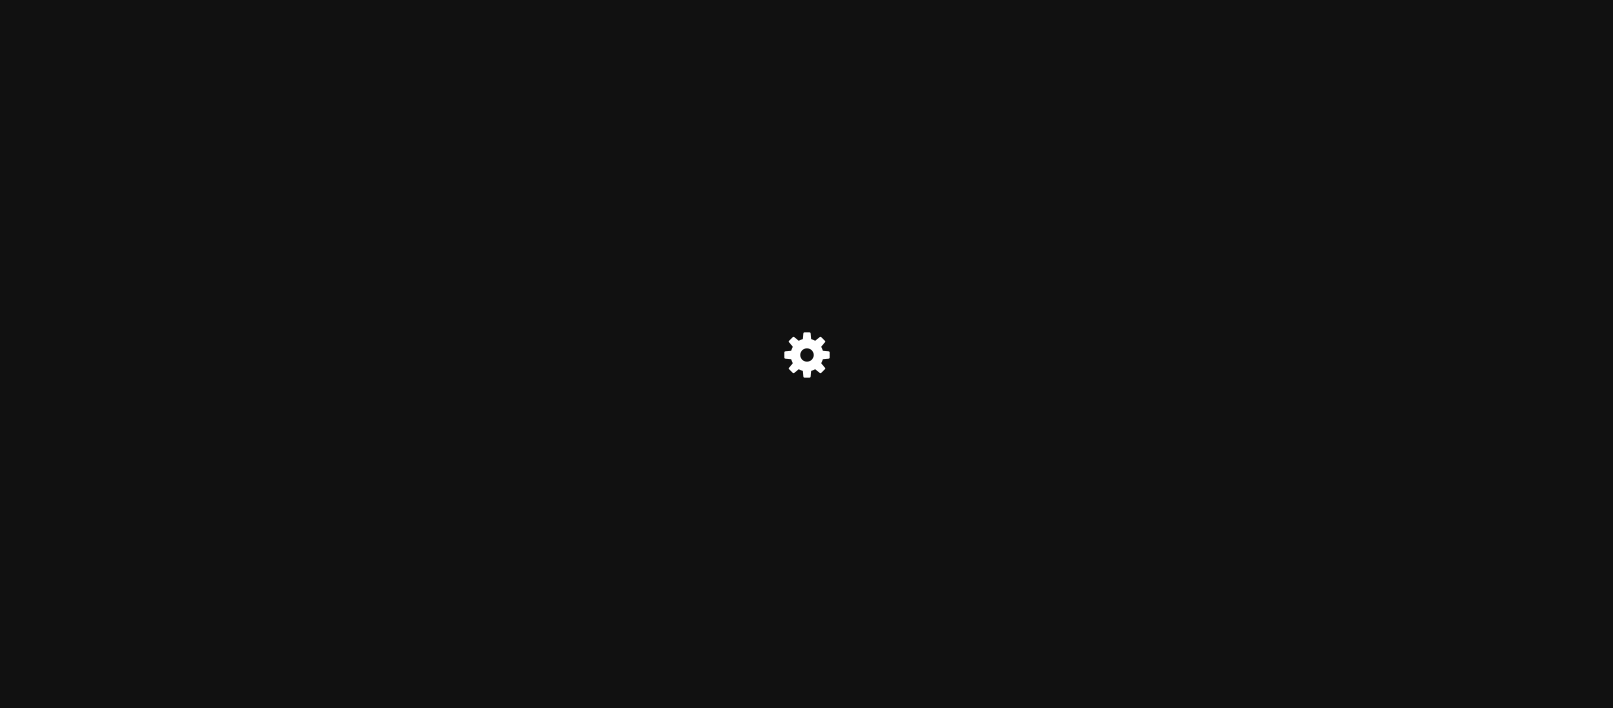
#include <cairo/cairo.h>
#include <math.h>
#include <stddef.h>

static cairo_t *cr;

static void use_color(int r, int g, int b) {
  cairo_set_source_rgb(cr, r / 255.0, g / 255.0, b / 255.0);
}

static void picture(const char *path, double x, double y, double w, double h) {
  cairo_surface_t *image = cairo_image_surface_create_from_png(path);
  cairo_save(cr);
  cairo_set_source_surface(cr, image, x, y);
  cairo_rectangle(cr, x, y, w, h);
  cairo_fill(cr);
  cairo_restore(cr);
  cairo_surface_destroy(image);
}

static void draw(void) {
  use_color(17, 17, 17);
  cairo_paint(cr);
  picture("img_01.png", 784, 332, 46, 46);
}

int main(void) {
  cairo_surface_t *surface = cairo_image_surface_create(CAIRO_FORMAT_RGB24, 1613, 708);
  cr = cairo_create(surface);
  cairo_font_options_t *options = cairo_font_options_create();
  cairo_font_options_set_hint_metrics(options, CAIRO_HINT_METRICS_OFF);
  cairo_font_options_set_hint_style(options, CAIRO_HINT_STYLE_NONE);
  cairo_set_font_options(cr, options);
  cairo_set_miter_limit(cr, 4);
  draw();
  cairo_surface_write_to_png(surface, "out.png");
  cairo_font_options_destroy(options);
  cairo_destroy(cr);
  cairo_surface_destroy(surface);
  return 0;
}
